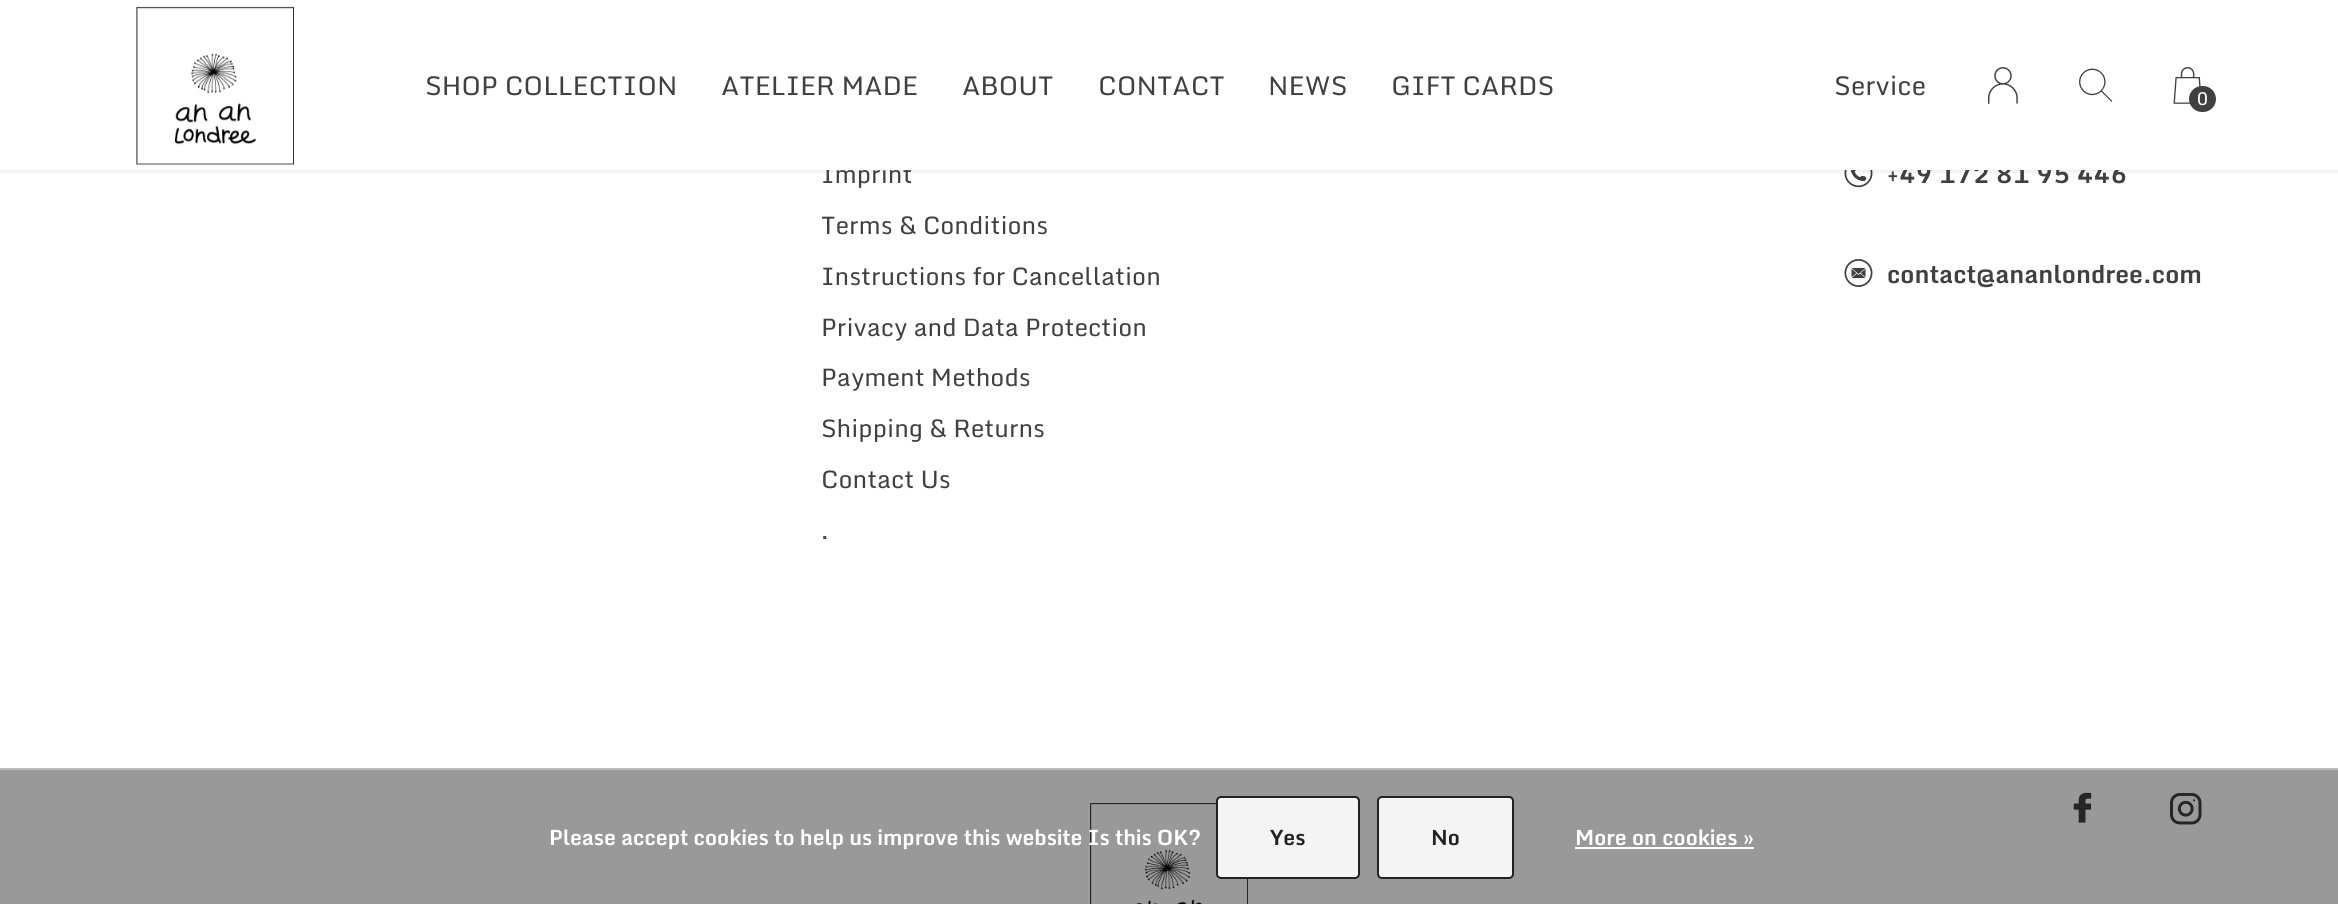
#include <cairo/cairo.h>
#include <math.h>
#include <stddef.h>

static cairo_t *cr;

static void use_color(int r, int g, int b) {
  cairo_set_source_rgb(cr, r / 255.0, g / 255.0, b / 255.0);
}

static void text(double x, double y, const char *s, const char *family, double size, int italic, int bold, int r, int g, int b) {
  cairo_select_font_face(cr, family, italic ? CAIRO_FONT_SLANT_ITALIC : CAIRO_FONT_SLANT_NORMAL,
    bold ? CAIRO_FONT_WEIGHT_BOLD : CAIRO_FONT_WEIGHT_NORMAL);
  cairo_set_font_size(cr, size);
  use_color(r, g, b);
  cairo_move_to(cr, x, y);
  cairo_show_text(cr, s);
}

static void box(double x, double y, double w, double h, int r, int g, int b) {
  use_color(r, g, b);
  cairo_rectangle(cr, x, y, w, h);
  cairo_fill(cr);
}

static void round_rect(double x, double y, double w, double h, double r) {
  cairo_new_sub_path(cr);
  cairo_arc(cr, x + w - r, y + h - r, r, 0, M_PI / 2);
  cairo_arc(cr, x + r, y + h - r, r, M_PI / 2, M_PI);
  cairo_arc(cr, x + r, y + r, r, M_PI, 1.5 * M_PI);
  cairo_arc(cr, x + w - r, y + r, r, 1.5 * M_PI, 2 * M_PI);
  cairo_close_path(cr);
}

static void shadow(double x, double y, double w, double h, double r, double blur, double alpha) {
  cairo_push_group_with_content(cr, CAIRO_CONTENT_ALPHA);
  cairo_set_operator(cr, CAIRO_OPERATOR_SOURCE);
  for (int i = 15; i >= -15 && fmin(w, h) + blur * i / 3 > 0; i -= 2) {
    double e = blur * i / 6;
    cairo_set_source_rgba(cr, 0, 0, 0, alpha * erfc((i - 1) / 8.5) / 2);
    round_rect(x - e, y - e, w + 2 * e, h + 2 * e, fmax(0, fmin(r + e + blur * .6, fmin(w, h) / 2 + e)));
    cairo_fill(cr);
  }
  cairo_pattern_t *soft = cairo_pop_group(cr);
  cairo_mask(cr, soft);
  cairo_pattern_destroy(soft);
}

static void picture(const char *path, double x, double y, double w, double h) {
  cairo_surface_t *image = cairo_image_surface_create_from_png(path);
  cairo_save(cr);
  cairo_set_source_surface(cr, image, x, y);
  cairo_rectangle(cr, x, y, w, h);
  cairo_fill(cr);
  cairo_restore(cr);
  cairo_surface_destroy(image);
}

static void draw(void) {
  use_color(255, 255, 255);
  cairo_paint(cr);
  box(0, 770, 2338, 134, 153, 153, 153);
  picture("img_05.png", 1844, 170, 29, 18);
  use_color(0, 0, 0);
  shadow(-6, -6, 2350, 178, 0, 2, 0.08);
  picture("img_06.png", 1844, 259, 29, 28);
  picture("img_07.png", 1090, 803, 158, 101);
  picture("img_08.png", 2073, 792, 19, 31);
  picture("img_09.png", 2170, 793, 32, 32);
  box(0, 768, 2338, 2, 187, 187, 187);
  use_color(245, 245, 245);
  round_rect(1217, 797, 142, 81, 4);
  cairo_fill_preserve(cr);
  use_color(34, 34, 34);
  cairo_stroke(cr);
  use_color(245, 245, 245);
  round_rect(1378, 797, 135, 81, 4);
  cairo_fill_preserve(cr);
  use_color(34, 34, 34);
  cairo_stroke(cr);
  box(1575, 847, 179, 2, 255, 255, 255);
  text(821, 183, "Imprint", "Monda", 24.5, 0, 0, 64, 64, 64);
  text(821, 234, "Terms & Conditions", "Monda", 24.5, 0, 0, 64, 64, 64);
  text(821, 285, "Instructions for Cancellation", "Monda", 24.5, 0, 0, 64, 64, 64);
  text(821, 336, "Privacy and Data Protection", "Monda", 24.5, 0, 0, 64, 64, 64);
  text(821, 386, "Payment Methods", "Monda", 24.5, 0, 0, 64, 64, 64);
  text(821, 437, "Shipping & Returns", "Monda", 24.5, 0, 0, 64, 64, 64);
  text(821, 488, "Contact Us", "Monda", 24.5, 0, 0, 64, 64, 64);
  text(821, 539, ".", "Monda", 24.5, 0, 0, 64, 64, 64);
  text(1887, 183, "+49 172 81 95 446", "Monda", 24.5, 0, 1, 64, 64, 64);
  box(0, 0, 2338, 170, 255, 255, 255);
  picture("img_01.png", 136, 6, 158, 159);
  picture("img_04.png", 2173, 67, 28, 37);
  use_color(64, 64, 64);
  round_rect(2189, 86, 27, 26, 13);
  cairo_fill(cr);
  text(2197, 105, "0", "Monda", 18, 0, 0, 255, 255, 255);
  picture("img_03.png", 2079, 68, 34, 34);
  picture("img_02.png", 1988, 67, 30, 37);
  text(1834, 95, "Service", "Monda", 26.25, 0, 0, 64, 64, 64);
  text(1391, 95, "GIFT CARDS", "Monda", 26.25, 0, 0, 64, 64, 64);
  text(1268, 95, "NEWS", "Monda", 26.25, 0, 0, 64, 64, 64);
  text(1098, 95, "CONTACT", "Monda", 26.25, 0, 0, 64, 64, 64);
  text(962, 95, "ABOUT", "Monda", 26.25, 0, 0, 64, 64, 64);
  text(721, 95, "ATELIER MADE", "Monda", 26.25, 0, 0, 64, 64, 64);
  text(425, 95, "SHOP COLLECTION", "Monda", 26.25, 0, 0, 64, 64, 64);
  text(1887, 283, "contact@ananlondree.com", "Monda", 24.5, 0, 1, 64, 64, 64);
  text(549, 845, "Please accept cookies to help us improve this website Is this OK?", "Monda", 21, 0, 1, 255, 255, 255);
  text(1270, 845, "Yes", "Monda", 21, 0, 1, 34, 34, 34);
  text(1431, 845, "No", "Monda", 21, 0, 1, 34, 34, 34);
  text(1575, 845, "More on cookies »", "Monda", 21, 0, 1, 255, 255, 255);
}

int main(void) {
  cairo_surface_t *surface = cairo_image_surface_create(CAIRO_FORMAT_RGB24, 2338, 904);
  cr = cairo_create(surface);
  cairo_font_options_t *options = cairo_font_options_create();
  cairo_font_options_set_hint_metrics(options, CAIRO_HINT_METRICS_OFF);
  cairo_font_options_set_hint_style(options, CAIRO_HINT_STYLE_NONE);
  cairo_set_font_options(cr, options);
  cairo_set_miter_limit(cr, 4);
  draw();
  cairo_surface_write_to_png(surface, "out.png");
  cairo_font_options_destroy(options);
  cairo_destroy(cr);
  cairo_surface_destroy(surface);
  return 0;
}
